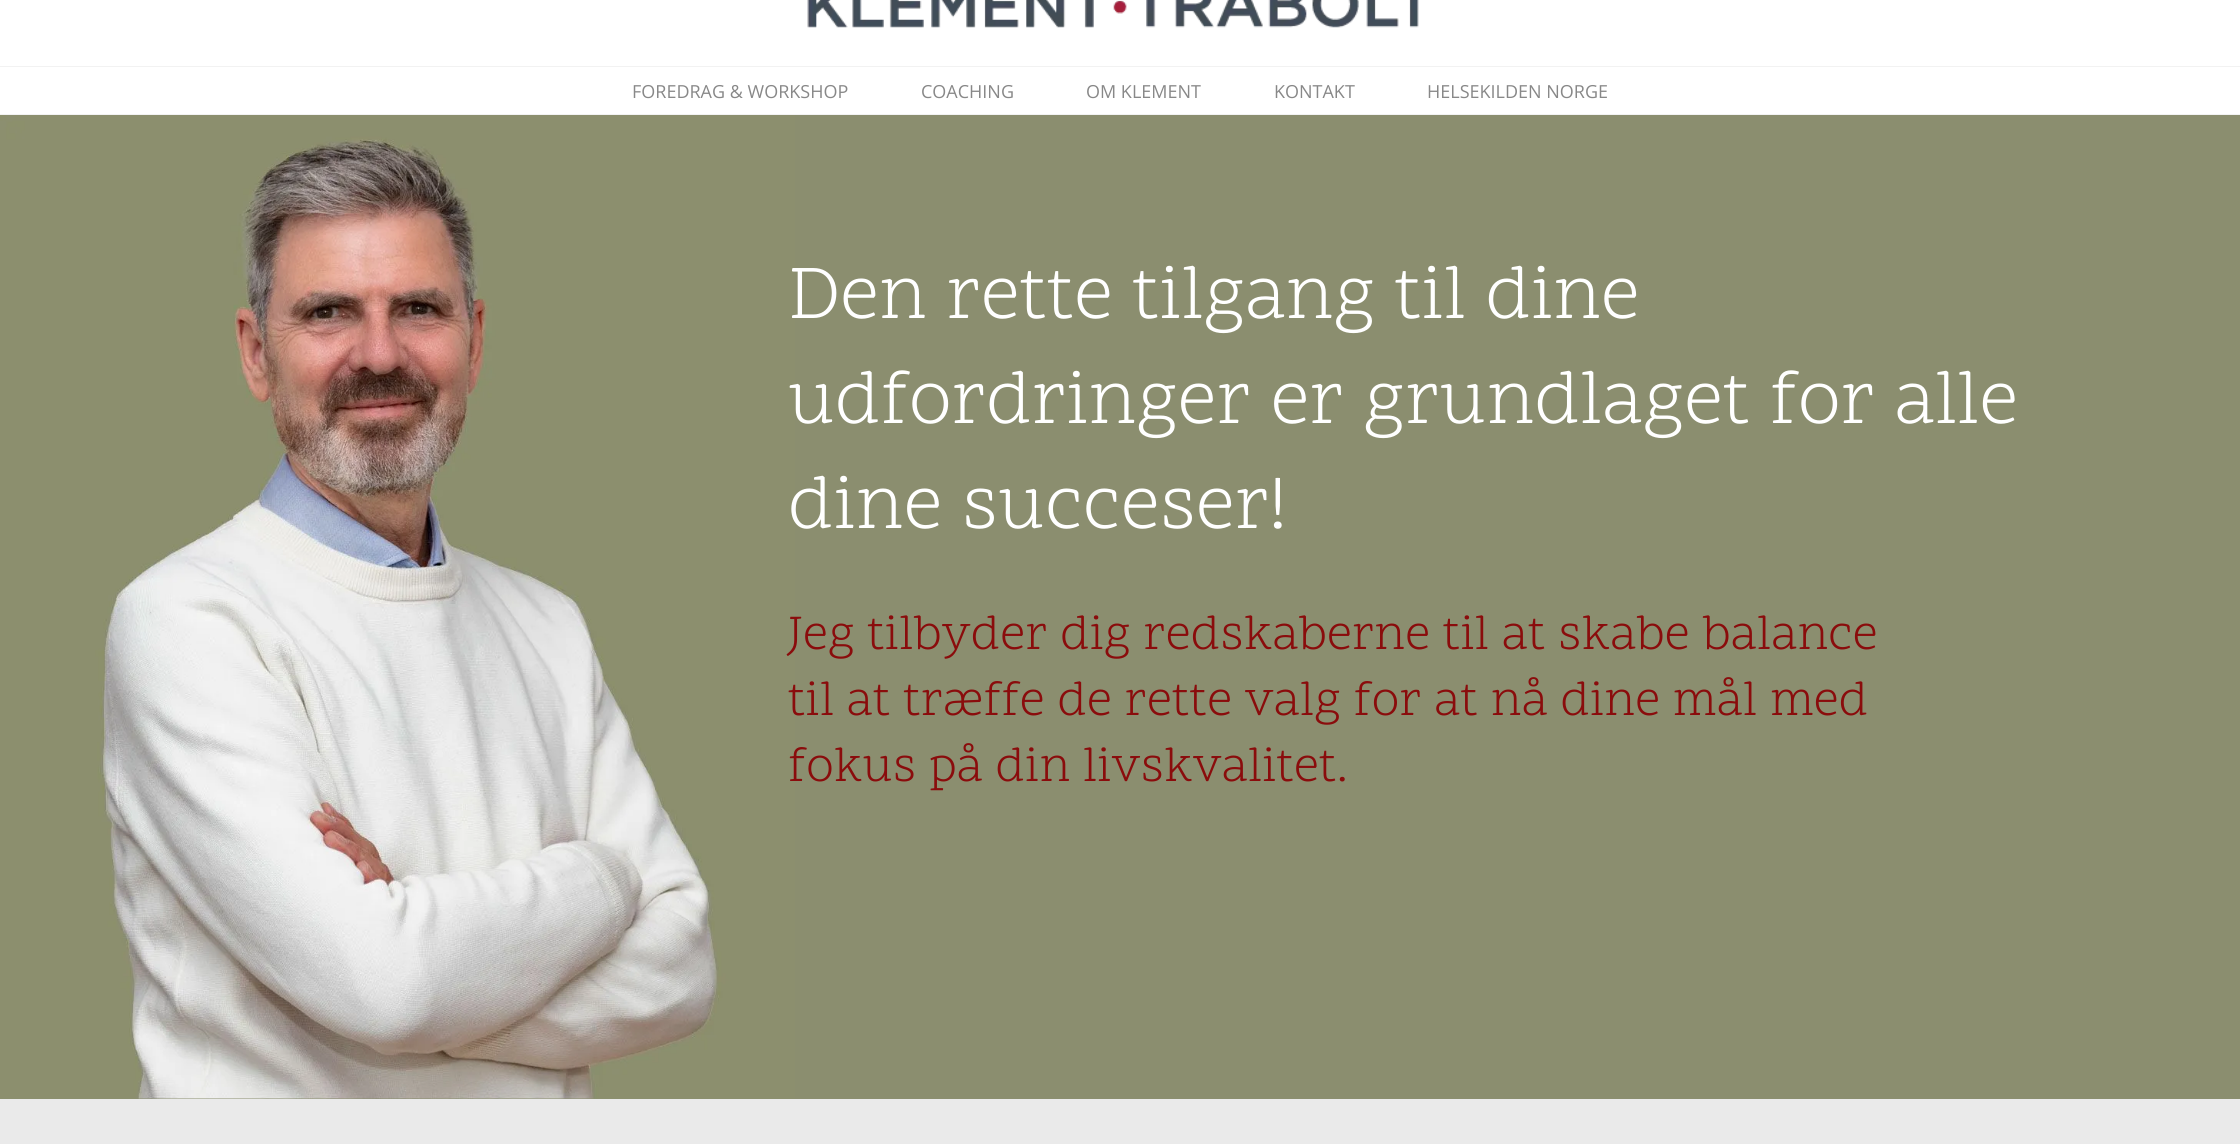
#include <cairo/cairo.h>
#include <math.h>
#include <stddef.h>

static cairo_t *cr;

static void use_color(int r, int g, int b) {
  cairo_set_source_rgb(cr, r / 255.0, g / 255.0, b / 255.0);
}

static void text(double x, double y, const char *s, const char *family, double size, int italic, int bold, int r, int g, int b) {
  cairo_select_font_face(cr, family, italic ? CAIRO_FONT_SLANT_ITALIC : CAIRO_FONT_SLANT_NORMAL,
    bold ? CAIRO_FONT_WEIGHT_BOLD : CAIRO_FONT_WEIGHT_NORMAL);
  cairo_set_font_size(cr, size);
  use_color(r, g, b);
  cairo_move_to(cr, x, y);
  cairo_show_text(cr, s);
}

static void spaced_text(double x, double y, const char *s, double letter, double word) {
  cairo_move_to(cr, x, y);
  while (*s) {
    char ch[5] = {0};
    int n = 0;
    do ch[n++] = *s++; while ((*s & 0xC0) == 0x80);
    cairo_show_text(cr, ch);
    cairo_rel_move_to(cr, letter + word * (*ch == ' '), 0);
  }
}

static void box(double x, double y, double w, double h, int r, int g, int b) {
  use_color(r, g, b);
  cairo_rectangle(cr, x, y, w, h);
  cairo_fill(cr);
}

static void picture(const char *path, double x, double y, double w, double h) {
  cairo_surface_t *image = cairo_image_surface_create_from_png(path);
  cairo_save(cr);
  cairo_set_source_surface(cr, image, x, y);
  cairo_rectangle(cr, x, y, w, h);
  cairo_fill(cr);
  cairo_restore(cr);
  cairo_surface_destroy(image);
}

static void draw(void) {
  use_color(234, 234, 234);
  cairo_paint(cr);
  box(0, 0, 2240, 114, 255, 255, 255);
  picture("img_01.png", 807, 0, 612, 28);
  box(0, 66, 2240, 1, 242, 242, 242);
  box(0, 114, 2240, 1, 242, 242, 242);
  box(0, 115, 2240, 984, 139, 142, 111);
  picture("img_02.png", 0, 115, 795, 984);
  text(632, 98, "FOREDRAG & WORKSHOP", "Open Sans", 18, 0, 0, 136, 136, 136);
  text(921, 98, "COACHING", "Open Sans", 18, 0, 0, 136, 136, 136);
  text(1086, 98, "OM KLEMENT", "Open Sans", 18, 0, 0, 136, 136, 136);
  text(1274, 98, "KONTAKT", "Open Sans", 18, 0, 0, 136, 136, 136);
  text(1427, 98, "HELSEKILDEN NORGE", "Open Sans", 18, 0, 0, 136, 136, 136);
  cairo_select_font_face(cr, "Scope One", CAIRO_FONT_SLANT_NORMAL, CAIRO_FONT_WEIGHT_NORMAL);
  cairo_set_font_size(cr, 77.5);
  use_color(255, 255, 255);
  spaced_text(788, 318, "Den rette tilgang til dine", 0.1, 0);
  spaced_text(788, 423, "udfordringer er grundlaget for alle", 0.1, 0);
  spaced_text(788, 528, "dine succeser!", 0.1, 0);
  cairo_set_font_size(cr, 50);
  use_color(138, 12, 12);
  spaced_text(788, 649, "Jeg tilbyder dig redskaberne til at skabe balance", 0.1, 0);
  spaced_text(788, 715, "til at træffe de rette valg for at nå dine mål med", 0.1, 0);
  spaced_text(788, 781, "fokus på din livskvalitet.", 0.1, 0);
}

int main(void) {
  cairo_surface_t *surface = cairo_image_surface_create(CAIRO_FORMAT_RGB24, 2240, 1144);
  cr = cairo_create(surface);
  cairo_font_options_t *options = cairo_font_options_create();
  cairo_font_options_set_hint_metrics(options, CAIRO_HINT_METRICS_OFF);
  cairo_font_options_set_hint_style(options, CAIRO_HINT_STYLE_NONE);
  cairo_set_font_options(cr, options);
  cairo_set_miter_limit(cr, 4);
  draw();
  cairo_surface_write_to_png(surface, "out.png");
  cairo_font_options_destroy(options);
  cairo_destroy(cr);
  cairo_surface_destroy(surface);
  return 0;
}
